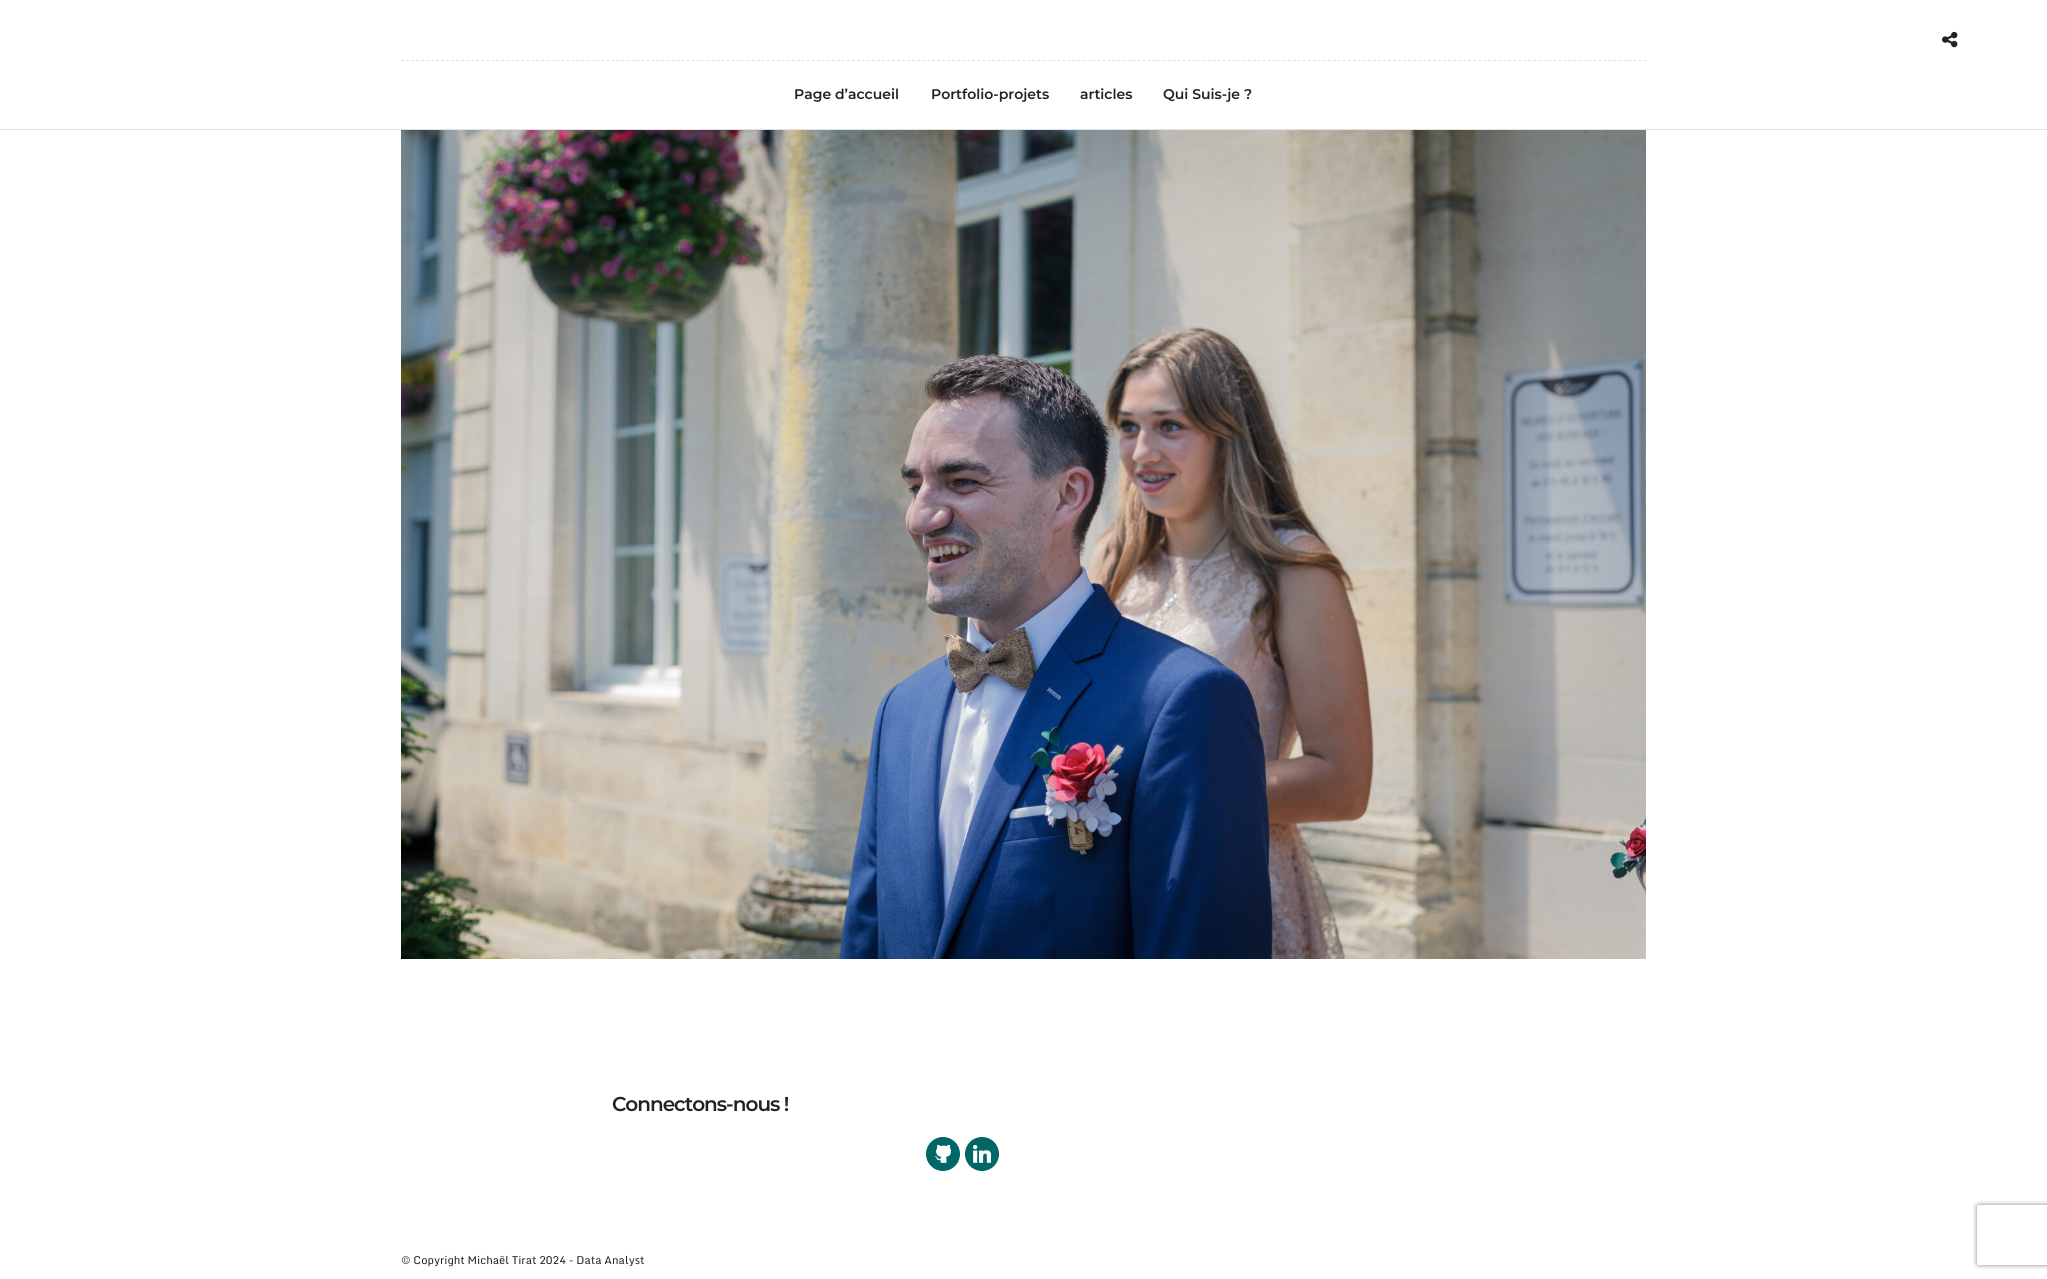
#include <cairo/cairo.h>
#include <math.h>
#include <stddef.h>

static cairo_t *cr;

static void use_color(int r, int g, int b) {
  cairo_set_source_rgb(cr, r / 255.0, g / 255.0, b / 255.0);
}

static void text(double x, double y, const char *s, const char *family, double size, int italic, int bold, int r, int g, int b) {
  cairo_select_font_face(cr, family, italic ? CAIRO_FONT_SLANT_ITALIC : CAIRO_FONT_SLANT_NORMAL,
    bold ? CAIRO_FONT_WEIGHT_BOLD : CAIRO_FONT_WEIGHT_NORMAL);
  cairo_set_font_size(cr, size);
  use_color(r, g, b);
  cairo_move_to(cr, x, y);
  cairo_show_text(cr, s);
}

static void spaced_text(double x, double y, const char *s, double letter, double word) {
  cairo_move_to(cr, x, y);
  while (*s) {
    char ch[5] = {0};
    int n = 0;
    do ch[n++] = *s++; while ((*s & 0xC0) == 0x80);
    cairo_show_text(cr, ch);
    cairo_rel_move_to(cr, letter + word * (*ch == ' '), 0);
  }
}

static void box(double x, double y, double w, double h, int r, int g, int b) {
  use_color(r, g, b);
  cairo_rectangle(cr, x, y, w, h);
  cairo_fill(cr);
}

static void round_rect(double x, double y, double w, double h, double r) {
  cairo_new_sub_path(cr);
  cairo_arc(cr, x + w - r, y + h - r, r, 0, M_PI / 2);
  cairo_arc(cr, x + r, y + h - r, r, M_PI / 2, M_PI);
  cairo_arc(cr, x + r, y + r, r, M_PI, 1.5 * M_PI);
  cairo_arc(cr, x + w - r, y + r, r, 1.5 * M_PI, 2 * M_PI);
  cairo_close_path(cr);
}

static void shadow(double x, double y, double w, double h, double r, double blur, double alpha) {
  cairo_push_group_with_content(cr, CAIRO_CONTENT_ALPHA);
  cairo_set_operator(cr, CAIRO_OPERATOR_SOURCE);
  for (int i = 15; i >= -15 && fmin(w, h) + blur * i / 3 > 0; i -= 2) {
    double e = blur * i / 6;
    cairo_set_source_rgba(cr, 0, 0, 0, alpha * erfc((i - 1) / 8.5) / 2);
    round_rect(x - e, y - e, w + 2 * e, h + 2 * e, fmax(0, fmin(r + e + blur * .6, fmin(w, h) / 2 + e)));
    cairo_fill(cr);
  }
  cairo_pattern_t *soft = cairo_pop_group(cr);
  cairo_mask(cr, soft);
  cairo_pattern_destroy(soft);
}

static void picture(const char *path, double x, double y, double w, double h) {
  cairo_surface_t *image = cairo_image_surface_create_from_png(path);
  cairo_save(cr);
  cairo_set_source_surface(cr, image, x, y);
  cairo_rectangle(cr, x, y, w, h);
  cairo_fill(cr);
  cairo_restore(cr);
  cairo_surface_destroy(image);
}

static void draw(void) {
  use_color(255, 255, 255);
  cairo_paint(cr);
  box(0, 129, 2047, 1, 225, 225, 225);
  picture("img_01.png", 1942, 31, 16, 17);
  cairo_new_path(cr);
  cairo_move_to(cr, 401, 60.5);
  cairo_line_to(cr, 1646, 60.5);
  cairo_set_line_width(cr, 1);
  cairo_set_dash(cr, (double[]){3, 2.01}, 2, 0);
  cairo_stroke(cr);
  picture("img_02.png", 401, 130, 1245, 829);
  use_color(0, 102, 102);
  cairo_arc(cr, 943, 1154, 17, 0, 2 * M_PI);
  cairo_fill(cr);
  picture("img_03.png", 935, 1144, 16, 19);
  cairo_arc(cr, 982, 1154, 17, 0, 2 * M_PI);
  cairo_fill(cr);
  picture("img_04.png", 973, 1144, 19, 19);
  cairo_save(cr);
  cairo_set_fill_rule(cr, CAIRO_FILL_RULE_EVEN_ODD);
  cairo_new_path(cr);
  cairo_move_to(cr, 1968, 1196);
  cairo_line_to(cr, 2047, 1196);
  cairo_line_to(cr, 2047, 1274);
  cairo_line_to(cr, 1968, 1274);
  cairo_close_path(cr);
  cairo_move_to(cr, 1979, 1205);
  cairo_line_to(cr, 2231, 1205);
  cairo_curve_to(cr, 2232, 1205, 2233, 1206, 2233, 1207);
  cairo_line_to(cr, 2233, 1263);
  cairo_curve_to(cr, 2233, 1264, 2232, 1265, 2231, 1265);
  cairo_line_to(cr, 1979, 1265);
  cairo_curve_to(cr, 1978, 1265, 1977, 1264, 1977, 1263);
  cairo_line_to(cr, 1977, 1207);
  cairo_curve_to(cr, 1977, 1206, 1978, 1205, 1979, 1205);
  cairo_close_path(cr);
  cairo_clip(cr);
  use_color(128, 128, 128);
  shadow(1977, 1205, 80, 60, 2, 2.5, 1);
  cairo_restore(cr);
  text(794, 99, "Page d’accueil", "Montserrat SemiBold", 14, 0, 0, 34, 34, 34);
  text(931, 99, "Portfolio-projets", "Montserrat SemiBold", 14, 0, 0, 34, 34, 34);
  text(1080, 99, "articles", "Montserrat SemiBold", 14, 0, 0, 34, 34, 34);
  text(1163, 99, "Qui Suis-je ?", "Montserrat SemiBold", 14, 0, 0, 34, 34, 34);
  cairo_set_font_size(cr, 20);
  spaced_text(612, 1111, "Connectons-nous !", -1, 0);
  text(401, 1264, "© Copyright Michaël Tirat 2024 - Data Analyst", "Monda", 11, 0, 0, 34, 34, 34);
}

int main(void) {
  cairo_surface_t *surface = cairo_image_surface_create(CAIRO_FORMAT_RGB24, 2047, 1279);
  cr = cairo_create(surface);
  cairo_font_options_t *options = cairo_font_options_create();
  cairo_font_options_set_hint_metrics(options, CAIRO_HINT_METRICS_OFF);
  cairo_font_options_set_hint_style(options, CAIRO_HINT_STYLE_NONE);
  cairo_set_font_options(cr, options);
  cairo_set_miter_limit(cr, 4);
  draw();
  cairo_surface_write_to_png(surface, "out.png");
  cairo_font_options_destroy(options);
  cairo_destroy(cr);
  cairo_surface_destroy(surface);
  return 0;
}
